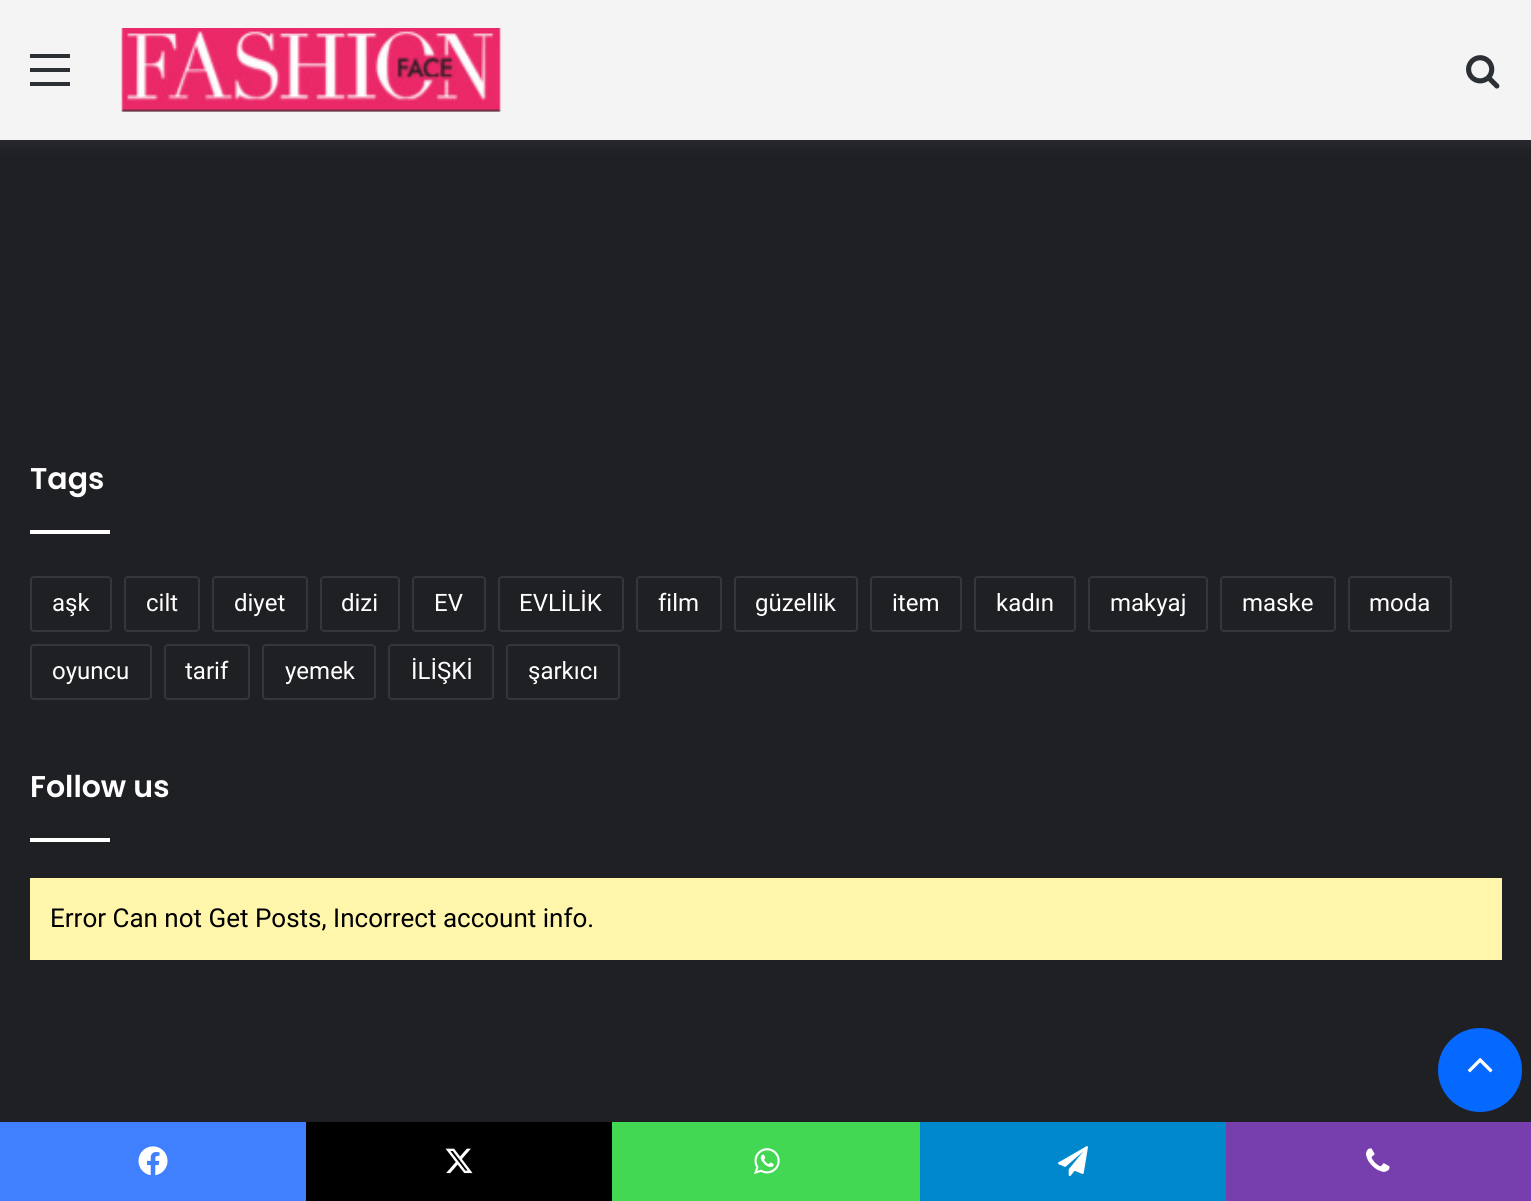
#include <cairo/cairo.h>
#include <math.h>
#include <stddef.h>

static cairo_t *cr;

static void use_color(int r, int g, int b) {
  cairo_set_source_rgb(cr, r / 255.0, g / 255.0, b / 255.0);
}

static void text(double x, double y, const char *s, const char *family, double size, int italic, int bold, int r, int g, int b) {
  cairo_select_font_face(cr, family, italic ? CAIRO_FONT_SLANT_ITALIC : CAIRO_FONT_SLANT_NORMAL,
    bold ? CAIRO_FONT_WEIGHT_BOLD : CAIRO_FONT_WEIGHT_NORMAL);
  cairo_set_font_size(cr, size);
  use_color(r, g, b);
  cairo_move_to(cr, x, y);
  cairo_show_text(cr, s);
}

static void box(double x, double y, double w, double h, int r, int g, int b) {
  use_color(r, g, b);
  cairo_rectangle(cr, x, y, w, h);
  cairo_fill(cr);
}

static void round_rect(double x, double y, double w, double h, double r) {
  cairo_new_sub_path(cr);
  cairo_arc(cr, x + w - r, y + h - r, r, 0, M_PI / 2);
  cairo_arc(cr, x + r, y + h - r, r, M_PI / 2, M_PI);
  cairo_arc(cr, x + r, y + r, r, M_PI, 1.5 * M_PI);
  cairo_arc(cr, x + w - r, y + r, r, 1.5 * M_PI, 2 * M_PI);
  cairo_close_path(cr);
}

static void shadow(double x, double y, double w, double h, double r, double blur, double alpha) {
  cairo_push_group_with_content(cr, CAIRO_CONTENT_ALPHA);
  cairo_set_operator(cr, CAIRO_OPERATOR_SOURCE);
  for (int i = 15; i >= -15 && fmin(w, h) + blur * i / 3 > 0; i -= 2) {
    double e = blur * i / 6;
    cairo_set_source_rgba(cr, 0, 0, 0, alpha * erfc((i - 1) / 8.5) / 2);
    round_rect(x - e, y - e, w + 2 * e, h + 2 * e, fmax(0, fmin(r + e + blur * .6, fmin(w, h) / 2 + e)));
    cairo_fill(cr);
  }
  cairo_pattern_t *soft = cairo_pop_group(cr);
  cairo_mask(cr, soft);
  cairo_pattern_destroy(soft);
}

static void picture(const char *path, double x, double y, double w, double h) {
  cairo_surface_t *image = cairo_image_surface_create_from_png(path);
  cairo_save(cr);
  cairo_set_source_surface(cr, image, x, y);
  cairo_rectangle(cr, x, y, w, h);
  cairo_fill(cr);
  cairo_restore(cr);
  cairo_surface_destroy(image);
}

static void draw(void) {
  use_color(31, 32, 36);
  cairo_paint(cr);
  use_color(99, 99, 99);
  shadow(0, 4, 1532, 140, 0, 8, 0.2);
  box(0, 0, 1531, 140, 244, 244, 244);
  box(30, 68, 40, 4, 44, 47, 52);
  box(30, 54, 40, 4, 44, 47, 52);
  box(30, 82, 40, 4, 44, 47, 52);
  picture("img_01.png", 121, 28, 381, 84);
  picture("img_02.png", 1466, 55, 34, 34);
  box(30, 530, 80, 4, 255, 255, 255);
  round_rect(31, 577, 80, 54, 3);
  use_color(53, 54, 58);
  cairo_stroke(cr);
  round_rect(125, 577, 74, 54, 3);
  cairo_stroke(cr);
  round_rect(213, 577, 94, 54, 3);
  cairo_stroke(cr);
  round_rect(321, 577, 78, 54, 3);
  cairo_stroke(cr);
  round_rect(413, 577, 72, 54, 3);
  cairo_stroke(cr);
  round_rect(499, 577, 124, 54, 3);
  cairo_stroke(cr);
  round_rect(637, 577, 84, 54, 3);
  cairo_stroke(cr);
  round_rect(735, 577, 122, 54, 3);
  cairo_stroke(cr);
  round_rect(871, 577, 90, 54, 3);
  cairo_stroke(cr);
  round_rect(975, 577, 100, 54, 3);
  cairo_stroke(cr);
  round_rect(1089, 577, 118, 54, 3);
  cairo_stroke(cr);
  round_rect(1221, 577, 114, 54, 3);
  cairo_stroke(cr);
  round_rect(1349, 577, 102, 54, 3);
  cairo_stroke(cr);
  round_rect(31, 645, 120, 54, 3);
  cairo_stroke(cr);
  round_rect(165, 645, 84, 54, 3);
  cairo_stroke(cr);
  round_rect(263, 645, 112, 54, 3);
  cairo_stroke(cr);
  round_rect(389, 645, 104, 54, 3);
  cairo_stroke(cr);
  round_rect(507, 645, 112, 54, 3);
  cairo_stroke(cr);
  box(30, 838, 80, 4, 255, 255, 255);
  box(30, 878, 1472, 82, 255, 246, 172);
  use_color(6, 105, 255);
  cairo_arc(cr, 1480, 1070, 42, 0, 2 * M_PI);
  cairo_fill(cr);
  picture("img_03.png", 1467, 1058, 26, 15);
  box(0, 1122, 306, 79, 64, 128, 255);
  picture("img_04.png", 138, 1146, 30, 30);
  box(306, 1122, 306, 79, 0, 0, 0);
  picture("img_05.png", 445, 1148, 28, 26);
  box(612, 1122, 308, 79, 67, 216, 84);
  picture("img_06.png", 754, 1148, 26, 26);
  box(920, 1122, 306, 79, 0, 136, 204);
  picture("img_07.png", 1058, 1146, 30, 31);
  box(1226, 1122, 305, 79, 119, 62, 173);
  picture("img_08.png", 1366, 1148, 24, 24);
  text(30, 489, "Tags", "Poppins SemiBold", 30, 0, 0, 255, 255, 255);
  text(52, 611, "aşk", "Roboto", 24, 0, 0, 255, 255, 255);
  text(146, 611, "cilt", "Roboto", 24, 0, 0, 255, 255, 255);
  text(234, 611, "diyet", "Roboto", 24, 0, 0, 255, 255, 255);
  text(341, 611, "dizi", "Roboto", 24, 0, 0, 255, 255, 255);
  text(434, 611, "EV", "Roboto", 24, 0, 0, 255, 255, 255);
  text(519, 611, "EVLİLİK", "Roboto", 24, 0, 0, 255, 255, 255);
  text(658, 611, "film", "Roboto", 24, 0, 0, 255, 255, 255);
  text(755, 611, "güzellik", "Roboto", 24, 0, 0, 255, 255, 255);
  text(892, 611, "item", "Roboto", 24, 0, 0, 255, 255, 255);
  text(996, 611, "kadın", "Roboto", 24, 0, 0, 255, 255, 255);
  text(1110, 611, "makyaj", "Roboto", 24, 0, 0, 255, 255, 255);
  text(1242, 611, "maske", "Roboto", 24, 0, 0, 255, 255, 255);
  text(1369, 611, "moda", "Roboto", 24, 0, 0, 255, 255, 255);
  text(52, 679, "oyuncu", "Roboto", 24, 0, 0, 255, 255, 255);
  text(185, 679, "tarif", "Roboto", 24, 0, 0, 255, 255, 255);
  text(285, 679, "yemek", "Roboto", 24, 0, 0, 255, 255, 255);
  text(411, 679, "İLİŞKİ", "Roboto", 24, 0, 0, 255, 255, 255);
  text(528, 679, "şarkıcı", "Roboto", 24, 0, 0, 255, 255, 255);
  text(30, 797, "Follow us", "Poppins SemiBold", 30, 0, 0, 255, 255, 255);
  text(50, 927, "Error Can not Get Posts, Incorrect account info.", "Roboto", 26, 0, 0, 0, 0, 0);
}

int main(void) {
  cairo_surface_t *surface = cairo_image_surface_create(CAIRO_FORMAT_RGB24, 1531, 1201);
  cr = cairo_create(surface);
  cairo_font_options_t *options = cairo_font_options_create();
  cairo_font_options_set_hint_metrics(options, CAIRO_HINT_METRICS_OFF);
  cairo_font_options_set_hint_style(options, CAIRO_HINT_STYLE_NONE);
  cairo_set_font_options(cr, options);
  cairo_set_miter_limit(cr, 4);
  draw();
  cairo_surface_write_to_png(surface, "out.png");
  cairo_font_options_destroy(options);
  cairo_destroy(cr);
  cairo_surface_destroy(surface);
  return 0;
}
